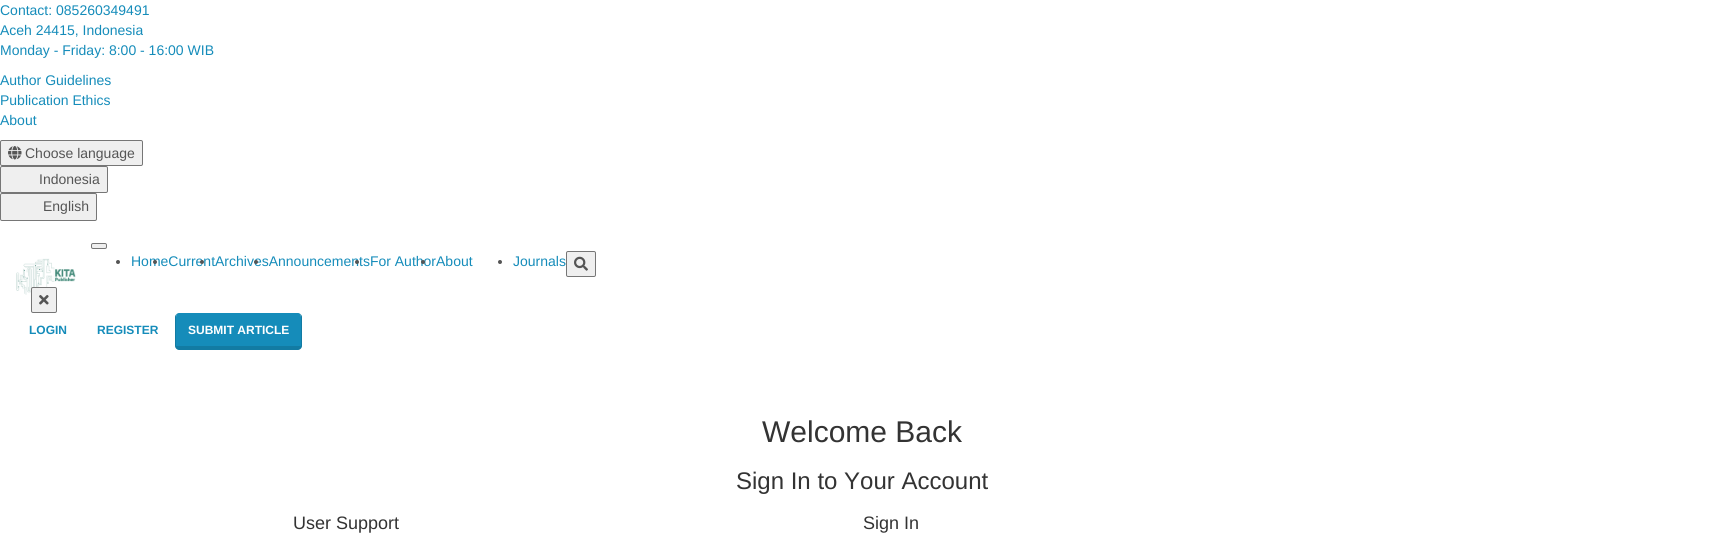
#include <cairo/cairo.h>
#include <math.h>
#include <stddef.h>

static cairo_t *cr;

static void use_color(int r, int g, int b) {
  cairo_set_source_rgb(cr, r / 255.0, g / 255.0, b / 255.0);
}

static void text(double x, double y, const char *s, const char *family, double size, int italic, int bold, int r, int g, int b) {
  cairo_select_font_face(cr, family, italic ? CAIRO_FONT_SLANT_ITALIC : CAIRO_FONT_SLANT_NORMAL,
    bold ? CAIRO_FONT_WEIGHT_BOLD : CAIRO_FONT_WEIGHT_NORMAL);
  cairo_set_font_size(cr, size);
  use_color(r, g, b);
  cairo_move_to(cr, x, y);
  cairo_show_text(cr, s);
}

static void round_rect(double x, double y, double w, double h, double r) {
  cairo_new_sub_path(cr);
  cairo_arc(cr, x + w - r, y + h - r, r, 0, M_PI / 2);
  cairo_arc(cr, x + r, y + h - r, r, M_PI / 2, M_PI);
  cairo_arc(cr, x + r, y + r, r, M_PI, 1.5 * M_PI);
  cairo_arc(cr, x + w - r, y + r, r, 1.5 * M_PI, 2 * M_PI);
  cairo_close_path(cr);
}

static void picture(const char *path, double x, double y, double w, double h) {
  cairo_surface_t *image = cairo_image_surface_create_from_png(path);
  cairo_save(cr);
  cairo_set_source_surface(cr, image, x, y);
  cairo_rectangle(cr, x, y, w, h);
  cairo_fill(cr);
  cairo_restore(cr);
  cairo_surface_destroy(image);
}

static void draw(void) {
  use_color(255, 255, 255);
  cairo_paint(cr);
  use_color(239, 239, 239);
  round_rect(0.5, 140.5, 142, 25, 1.5);
  cairo_fill_preserve(cr);
  use_color(118, 118, 118);
  cairo_set_line_width(cr, 1);
  cairo_stroke(cr);
  picture("img_01.png", 8, 146, 14, 14);
  use_color(239, 239, 239);
  round_rect(0.5, 166.5, 107, 26, 1.5);
  cairo_fill_preserve(cr);
  use_color(118, 118, 118);
  cairo_stroke(cr);
  use_color(239, 239, 239);
  round_rect(0.5, 193.5, 96, 27, 1.5);
  cairo_fill_preserve(cr);
  use_color(118, 118, 118);
  cairo_stroke(cr);
  use_color(239, 239, 239);
  round_rect(91.5, 243.5, 15, 5, 1.5);
  cairo_fill_preserve(cr);
  use_color(118, 118, 118);
  cairo_stroke(cr);
  picture("img_02.png", 16, 258, 60, 37);
  use_color(85, 85, 85);
  cairo_arc(cr, 118, 262, 2, 0, 2 * M_PI);
  cairo_fill(cr);
  cairo_arc(cr, 500, 262, 2, 0, 2 * M_PI);
  cairo_fill(cr);
  use_color(239, 239, 239);
  round_rect(566.5, 251.5, 29, 25, 1.5);
  cairo_fill_preserve(cr);
  use_color(118, 118, 118);
  cairo_stroke(cr);
  picture("img_03.png", 574, 256, 14, 15);
  use_color(239, 239, 239);
  round_rect(31.5, 287.5, 25, 25, 1.5);
  cairo_fill_preserve(cr);
  use_color(118, 118, 118);
  cairo_stroke(cr);
  picture("img_04.png", 39, 295, 10, 10);
  use_color(21, 140, 186);
  cairo_new_path(cr);
  cairo_move_to(cr, 179, 313);
  cairo_line_to(cr, 298, 313);
  cairo_curve_to(cr, 300, 313, 301, 315, 301, 317);
  cairo_line_to(cr, 301, 346);
  cairo_line_to(cr, 176, 346);
  cairo_line_to(cr, 176, 317);
  cairo_curve_to(cr, 176, 315, 177, 313, 179, 313);
  cairo_close_path(cr);
  cairo_fill(cr);
  use_color(18, 123, 163);
  cairo_set_fill_rule(cr, CAIRO_FILL_RULE_EVEN_ODD);
  cairo_new_path(cr);
  cairo_move_to(cr, 179, 313);
  cairo_line_to(cr, 298, 313);
  cairo_curve_to(cr, 300, 313, 302, 315, 302, 317);
  cairo_line_to(cr, 302, 346);
  cairo_curve_to(cr, 302, 348, 300, 350, 298, 350);
  cairo_line_to(cr, 179, 350);
  cairo_curve_to(cr, 177, 350, 175, 348, 175, 346);
  cairo_line_to(cr, 175, 317);
  cairo_curve_to(cr, 175, 315, 177, 313, 179, 313);
  cairo_close_path(cr);
  cairo_move_to(cr, 179, 313);
  cairo_line_to(cr, 298, 313);
  cairo_curve_to(cr, 300, 313, 301, 315, 301, 317);
  cairo_line_to(cr, 301, 346);
  cairo_line_to(cr, 176, 346);
  cairo_line_to(cr, 176, 317);
  cairo_curve_to(cr, 176, 315, 177, 313, 179, 313);
  cairo_close_path(cr);
  cairo_fill(cr);
  text(0, 15, "Contact: 085260349491", "Liberation Sans", 14, 0, 0, 21, 140, 186);
  text(0, 35, "Aceh 24415, Indonesia", "Liberation Sans", 14, 0, 0, 21, 140, 186);
  text(0, 55, "Monday - Friday: 8:00 - 16:00 WIB", "Liberation Sans", 14, 0, 0, 21, 140, 186);
  text(0, 85, "Author Guidelines", "Liberation Sans", 14, 0, 0, 21, 140, 186);
  text(0, 105, "Publication Ethics", "Liberation Sans", 14, 0, 0, 21, 140, 186);
  text(0, 125, "About", "Liberation Sans", 14, 0, 0, 21, 140, 186);
  text(25, 158, "Choose language", "Liberation Sans", 14, 0, 0, 85, 85, 85);
  text(39, 184, "Indonesia", "Liberation Sans", 14, 0, 0, 85, 85, 85);
  text(43, 211, "English", "Liberation Sans", 14, 0, 0, 85, 85, 85);
  text(131, 266, "HomeCurrentArchivesAnnouncementsFor AuthorAbout", "Liberation Sans", 14, 0, 0, 21, 140, 186);
  use_color(85, 85, 85);
  cairo_new_path(cr);
  cairo_arc(cr, 155, 262, 2, 0, 2 * M_PI);
  cairo_fill(cr);
  cairo_arc(cr, 202, 262, 2, 0, 2 * M_PI);
  cairo_fill(cr);
  cairo_arc(cr, 256, 262, 2, 0, 2 * M_PI);
  cairo_fill(cr);
  cairo_arc(cr, 357, 262, 2, 0, 2 * M_PI);
  cairo_fill(cr);
  cairo_arc(cr, 423, 262, 2, 0, 2 * M_PI);
  cairo_fill(cr);
  text(513, 266, "Journals", "Liberation Sans", 14, 0, 0, 21, 140, 186);
  text(29, 334, "LOGIN", "Liberation Sans", 12, 0, 1, 21, 140, 186);
  text(97, 334, "REGISTER", "Liberation Sans", 12, 0, 1, 21, 140, 186);
  text(188, 334, "SUBMIT ARTICLE", "Liberation Sans", 12, 0, 1, 255, 255, 255);
  text(762, 442, "Welcome Back", "Liberation Sans", 30, 0, 0, 51, 51, 51);
  text(736, 489, "Sign In to Your Account", "Liberation Sans", 24, 0, 0, 51, 51, 51);
  text(293, 529, "User Support", "Liberation Sans", 18, 0, 0, 51, 51, 51);
  text(863, 529, "Sign In", "Liberation Sans", 18, 0, 0, 51, 51, 51);
}

int main(void) {
  cairo_surface_t *surface = cairo_image_surface_create(CAIRO_FORMAT_RGB24, 1725, 543);
  cr = cairo_create(surface);
  cairo_font_options_t *options = cairo_font_options_create();
  cairo_font_options_set_hint_metrics(options, CAIRO_HINT_METRICS_OFF);
  cairo_font_options_set_hint_style(options, CAIRO_HINT_STYLE_NONE);
  cairo_set_font_options(cr, options);
  cairo_set_miter_limit(cr, 4);
  draw();
  cairo_surface_write_to_png(surface, "out.png");
  cairo_font_options_destroy(options);
  cairo_destroy(cr);
  cairo_surface_destroy(surface);
  return 0;
}
